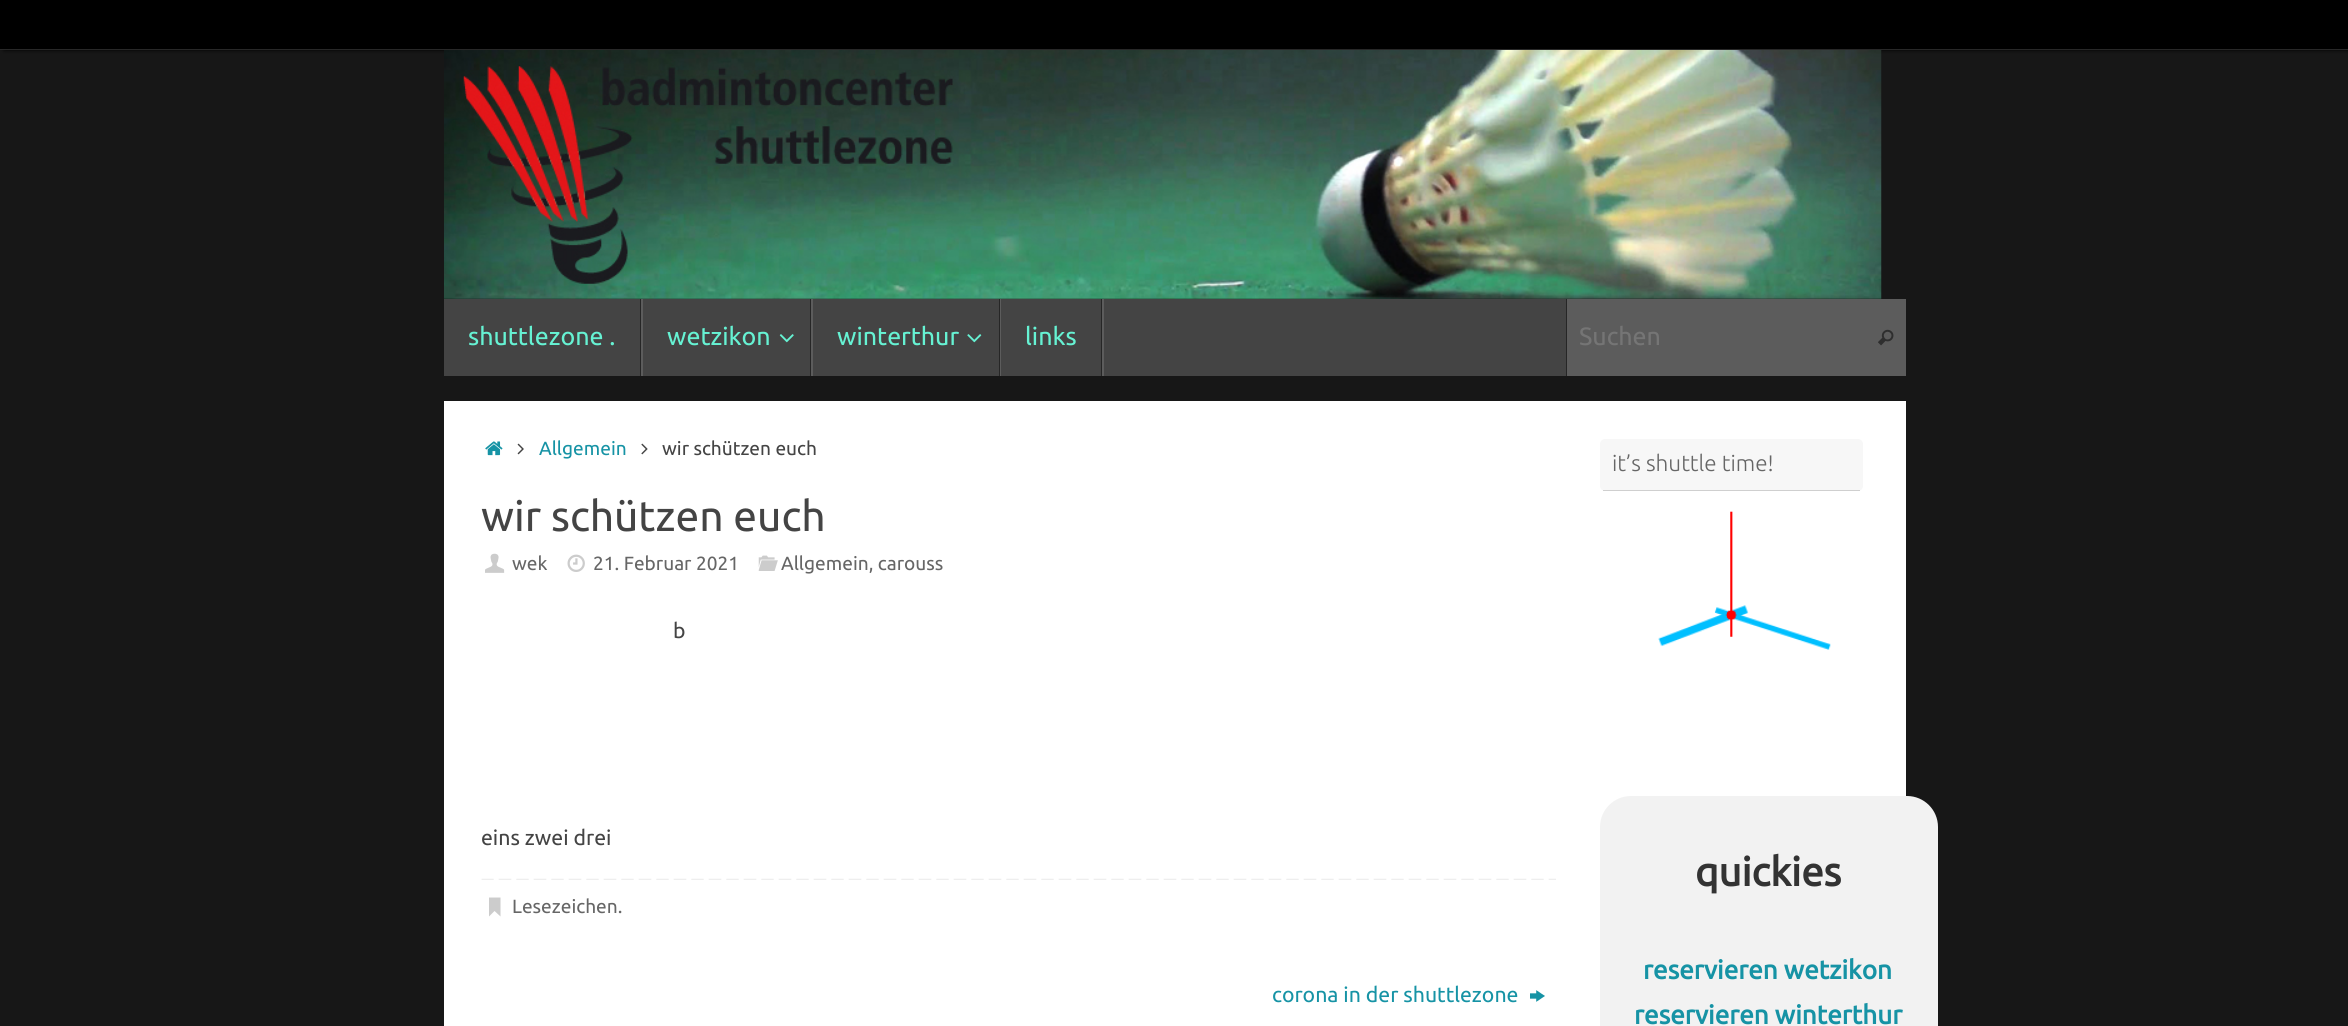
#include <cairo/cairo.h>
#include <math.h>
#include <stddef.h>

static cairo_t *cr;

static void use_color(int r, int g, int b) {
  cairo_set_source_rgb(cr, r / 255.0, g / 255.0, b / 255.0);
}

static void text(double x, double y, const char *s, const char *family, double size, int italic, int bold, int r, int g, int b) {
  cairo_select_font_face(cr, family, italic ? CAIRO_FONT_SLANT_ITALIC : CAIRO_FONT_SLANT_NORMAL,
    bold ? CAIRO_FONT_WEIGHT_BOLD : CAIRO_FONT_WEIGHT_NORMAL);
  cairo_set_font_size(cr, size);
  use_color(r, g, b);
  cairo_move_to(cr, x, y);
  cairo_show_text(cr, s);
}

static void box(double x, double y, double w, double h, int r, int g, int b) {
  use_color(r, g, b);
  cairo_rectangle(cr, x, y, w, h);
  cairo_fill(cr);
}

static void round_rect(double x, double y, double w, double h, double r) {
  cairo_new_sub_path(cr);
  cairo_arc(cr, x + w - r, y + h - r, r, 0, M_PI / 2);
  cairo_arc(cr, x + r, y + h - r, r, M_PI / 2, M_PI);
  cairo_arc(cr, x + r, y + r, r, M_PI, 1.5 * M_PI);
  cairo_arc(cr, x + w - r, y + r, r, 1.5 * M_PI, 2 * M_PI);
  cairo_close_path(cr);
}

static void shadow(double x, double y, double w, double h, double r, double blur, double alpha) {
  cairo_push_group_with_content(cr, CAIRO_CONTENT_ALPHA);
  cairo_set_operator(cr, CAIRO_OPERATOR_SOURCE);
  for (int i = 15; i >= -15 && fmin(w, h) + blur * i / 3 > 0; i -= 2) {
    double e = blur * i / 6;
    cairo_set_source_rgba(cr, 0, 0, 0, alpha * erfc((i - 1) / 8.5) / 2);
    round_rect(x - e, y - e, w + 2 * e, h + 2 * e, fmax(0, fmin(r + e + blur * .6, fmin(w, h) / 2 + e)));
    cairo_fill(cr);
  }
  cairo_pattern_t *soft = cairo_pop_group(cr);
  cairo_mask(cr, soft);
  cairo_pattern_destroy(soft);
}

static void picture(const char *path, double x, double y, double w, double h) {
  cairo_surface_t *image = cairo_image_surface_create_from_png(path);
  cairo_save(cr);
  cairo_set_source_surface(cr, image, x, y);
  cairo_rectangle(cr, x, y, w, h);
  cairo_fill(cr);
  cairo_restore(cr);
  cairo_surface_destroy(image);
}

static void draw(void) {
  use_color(23, 23, 23);
  cairo_paint(cr);
  use_color(0, 0, 0);
  shadow(4, 0, 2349, 50, 0, 2, 1);
  box(0, 0, 2348, 49, 0, 0, 0);
  box(0, 49, 2348, 1, 40, 40, 40);
  picture("img_01.png", 444, 50, 1438, 249);
  box(444, 299, 1122, 77, 68, 68, 68);
  box(641, 299, 2, 77, 92, 92, 92);
  box(640, 299, 1, 77, 38, 38, 38);
  box(811, 299, 2, 77, 92, 92, 92);
  box(810, 299, 1, 77, 38, 38, 38);
  picture("img_02.png", 779, 334, 15, 9);
  box(1000, 299, 1, 77, 92, 92, 92);
  box(999, 299, 1, 77, 38, 38, 38);
  picture("img_03.png", 967, 334, 15, 9);
  box(1102, 299, 2, 77, 92, 92, 92);
  box(1101, 299, 1, 77, 38, 38, 38);
  box(1567, 299, 339, 77, 92, 92, 92);
  box(1566, 299, 1, 77, 38, 38, 38);
  picture("img_04.png", 1878, 329, 16, 17);
  box(444, 401, 1462, 625, 255, 255, 255);
  picture("img_05.png", 485, 441, 18, 15);
  picture("img_06.png", 517, 443, 7, 12);
  picture("img_07.png", 641, 443, 7, 12);
  picture("img_08.png", 485, 553, 20, 20);
  picture("img_09.png", 567, 554, 18, 18);
  picture("img_10.png", 758, 555, 20, 16);
  picture("img_11.png", 481, 878, 1075, 2);
  use_color(204, 204, 204);
  cairo_new_path(cr);
  cairo_move_to(cr, 489, 915);
  cairo_line_to(cr, 489, 897.5);
  cairo_line_to(cr, 500.5, 897.5);
  cairo_line_to(cr, 500.5, 916.5);
  cairo_line_to(cr, 494.5, 911);
  cairo_line_to(cr, 489, 916.5);
  cairo_close_path(cr);
  cairo_fill(cr);
  picture("img_12.png", 1530, 990, 15, 12);
  use_color(247, 247, 247);
  round_rect(1600, 439, 263, 52, 5);
  cairo_fill(cr);
  box(1603, 490, 257, 1, 207, 207, 207);
  picture("img_13.png", 1658, 511, 173, 139);
  use_color(242, 242, 242);
  round_rect(1600, 796, 338, 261, 31);
  cairo_fill(cr);
  text(468, 345, "shuttlezone .", "Ubuntu", 25, 0, 0, 102, 242, 211);
  text(667, 345, "wetzikon", "Ubuntu", 25, 0, 0, 102, 242, 211);
  text(837, 345, "winterthur", "Ubuntu", 25, 0, 0, 102, 242, 211);
  text(1025, 345, "links", "Ubuntu", 25, 0, 0, 102, 242, 211);
  text(1579, 345, "Suchen", "Ubuntu", 25, 0, 0, 117, 117, 117);
  text(539, 455, "Allgemein", "Ubuntu", 19.1, 0, 0, 22, 147, 165);
  text(662, 455, "wir schützen euch", "Ubuntu", 19.1, 0, 0, 68, 68, 68);
  text(481, 531, "wir schützen euch", "Ubuntu", 42.5, 0, 0, 68, 68, 68);
  text(512, 570, "wek", "Ubuntu", 19.1, 0, 0, 102, 102, 102);
  text(593, 570, "21. Februar 2021", "Ubuntu", 19.1, 0, 0, 102, 102, 102);
  text(781, 570, "Allgemein, carouss", "Ubuntu", 19.1, 0, 0, 102, 102, 102);
  text(673, 638, "b", "Ubuntu", 21.25, 0, 0, 68, 68, 68);
  text(481, 845, "eins zwei drei", "Ubuntu", 21.25, 0, 0, 68, 68, 68);
  text(512, 913, "Lesezeichen.", "Ubuntu", 19.1, 0, 0, 102, 102, 102);
  text(1272, 1002, "corona in der shuttlezone", "Ubuntu", 21.25, 0, 0, 22, 147, 165);
  text(1612, 471, "it’s shuttle time!", "Ubuntu Light", 22.5, 0, 0, 102, 102, 102);
  text(1695, 886, "quickies", "Ubuntu", 40, 0, 1, 51, 51, 51);
  text(1643, 979, "reservieren wetzikon", "Ubuntu", 26.1, 0, 1, 22, 147, 165);
  text(1634, 1024, "reservieren winterthur", "Ubuntu", 26.1, 0, 1, 22, 147, 165);
}

int main(void) {
  cairo_surface_t *surface = cairo_image_surface_create(CAIRO_FORMAT_RGB24, 2348, 1026);
  cr = cairo_create(surface);
  cairo_font_options_t *options = cairo_font_options_create();
  cairo_font_options_set_hint_metrics(options, CAIRO_HINT_METRICS_OFF);
  cairo_font_options_set_hint_style(options, CAIRO_HINT_STYLE_NONE);
  cairo_set_font_options(cr, options);
  cairo_set_miter_limit(cr, 4);
  draw();
  cairo_surface_write_to_png(surface, "out.png");
  cairo_font_options_destroy(options);
  cairo_destroy(cr);
  cairo_surface_destroy(surface);
  return 0;
}
